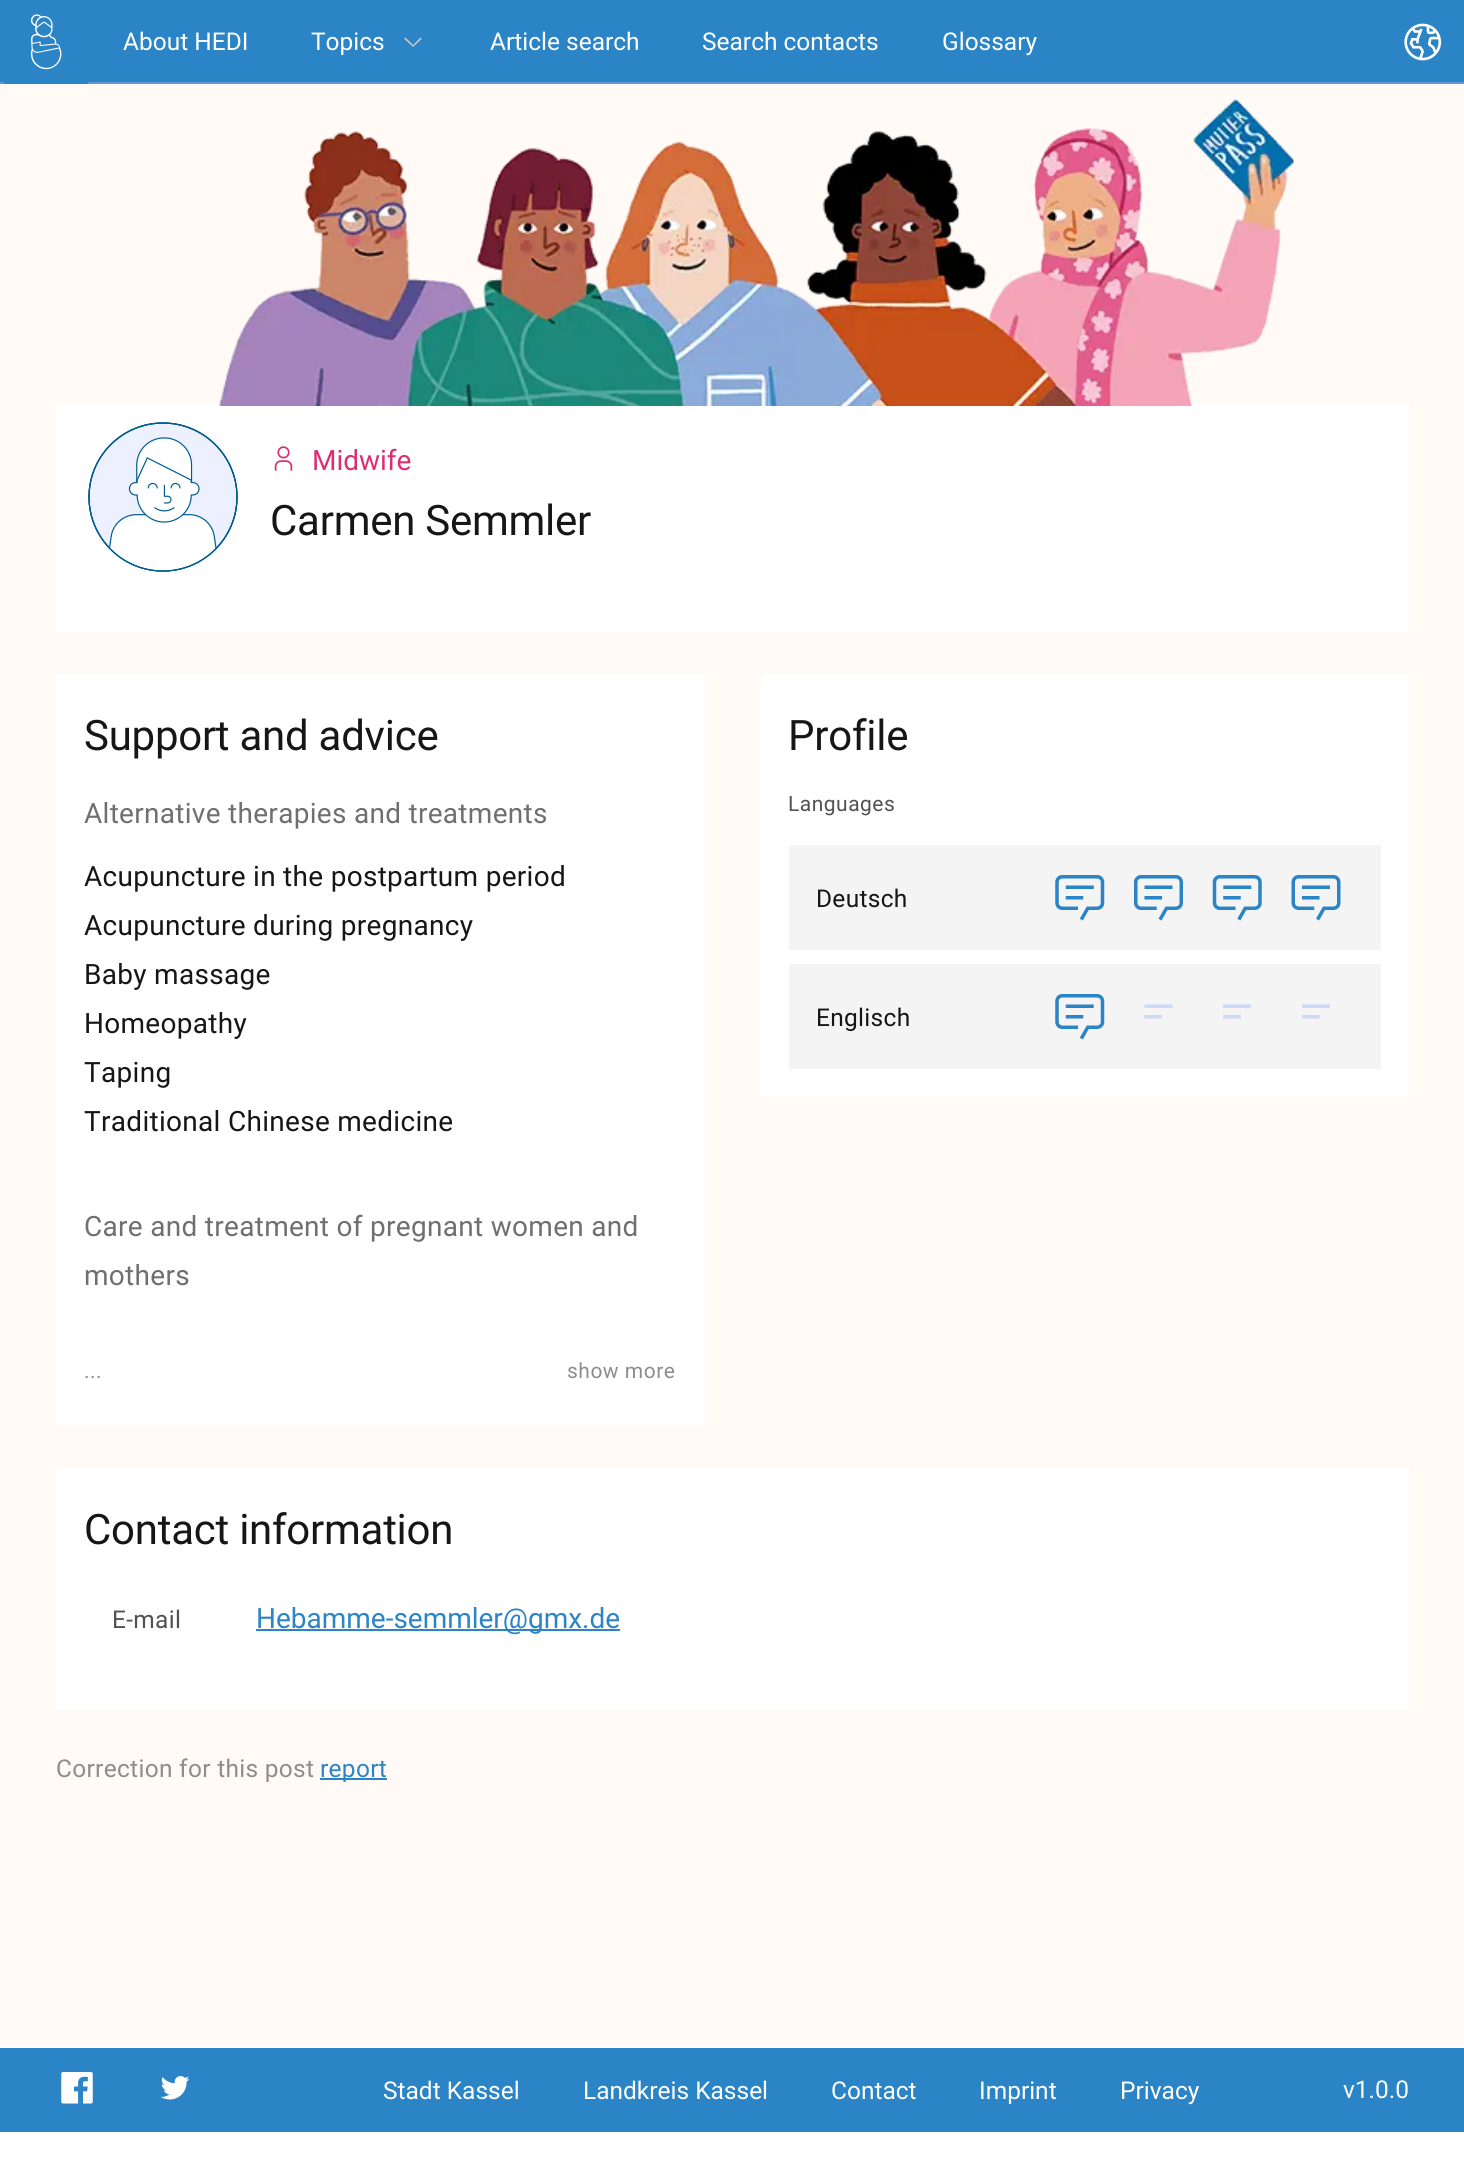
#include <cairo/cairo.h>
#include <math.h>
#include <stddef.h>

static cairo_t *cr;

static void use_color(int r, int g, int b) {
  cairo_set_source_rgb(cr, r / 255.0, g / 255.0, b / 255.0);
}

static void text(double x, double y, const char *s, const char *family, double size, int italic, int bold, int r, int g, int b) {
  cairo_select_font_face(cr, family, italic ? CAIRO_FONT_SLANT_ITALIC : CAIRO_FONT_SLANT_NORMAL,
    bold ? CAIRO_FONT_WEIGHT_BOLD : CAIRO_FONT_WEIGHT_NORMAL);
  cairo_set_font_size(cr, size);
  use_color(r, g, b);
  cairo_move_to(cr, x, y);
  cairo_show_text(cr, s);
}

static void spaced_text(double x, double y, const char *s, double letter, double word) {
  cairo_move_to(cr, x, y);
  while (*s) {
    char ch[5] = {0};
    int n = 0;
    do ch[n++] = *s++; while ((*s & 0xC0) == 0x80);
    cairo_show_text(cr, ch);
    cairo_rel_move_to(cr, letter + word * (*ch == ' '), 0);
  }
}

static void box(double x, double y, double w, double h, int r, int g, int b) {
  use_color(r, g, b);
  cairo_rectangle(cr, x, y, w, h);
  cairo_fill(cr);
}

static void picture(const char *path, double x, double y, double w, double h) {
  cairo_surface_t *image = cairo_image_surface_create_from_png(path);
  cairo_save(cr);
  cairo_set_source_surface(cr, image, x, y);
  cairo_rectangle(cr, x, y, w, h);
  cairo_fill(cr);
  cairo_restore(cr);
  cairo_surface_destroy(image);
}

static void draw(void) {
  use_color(255, 255, 255);
  cairo_paint(cr);
  box(0, 0, 1464, 82, 42, 132, 198);
  box(0, 82, 1464, 2, 99, 151, 209);
  box(4, 82, 84, 2, 42, 132, 198);
  picture("img_01.png", 30, 14, 32, 56);
  use_color(198, 198, 198);
  cairo_new_path(cr);
  cairo_move_to(cr, 413, 47);
  cairo_line_to(cr, 404, 38.5);
  cairo_line_to(cr, 405.5, 37.5);
  cairo_line_to(cr, 413, 45);
  cairo_line_to(cr, 420.5, 37.5);
  cairo_line_to(cr, 422, 38.5);
  cairo_close_path(cr);
  cairo_fill(cr);
  picture("img_02.png", 1404, 23, 38, 38);
  box(0, 84, 1464, 1964, 255, 250, 246);
  box(56, 404, 1353, 228, 255, 255, 255);
  picture("img_03.png", 218, 99, 1076, 307);
  picture("img_04.png", 88, 422, 150, 150);
  picture("img_05.png", 274, 446, 19, 25);
  box(56, 674, 649, 752, 255, 255, 255);
  box(761, 674, 648, 423, 255, 255, 255);
  box(789, 845, 592, 105, 244, 244, 244);
  picture("img_06.png", 1055, 875, 50, 46);
  picture("img_07.png", 1134, 875, 49, 46);
  picture("img_08.png", 1212, 875, 50, 46);
  picture("img_09.png", 1291, 875, 50, 46);
  box(789, 964, 592, 105, 244, 244, 244);
  picture("img_06.png", 1055, 994, 50, 46);
  use_color(206, 216, 247);
  cairo_new_path(cr);
  cairo_move_to(cr, 1144.5, 1004.5);
  cairo_line_to(cr, 1172.5, 1004.5);
  cairo_line_to(cr, 1172.5, 1008);
  cairo_line_to(cr, 1144.5, 1008);
  cairo_close_path(cr);
  cairo_move_to(cr, 1144.5, 1015);
  cairo_line_to(cr, 1162, 1015);
  cairo_line_to(cr, 1162, 1018.5);
  cairo_line_to(cr, 1144.5, 1018.5);
  cairo_close_path(cr);
  cairo_fill(cr);
  cairo_new_path(cr);
  cairo_move_to(cr, 1223, 1004.5);
  cairo_line_to(cr, 1251, 1004.5);
  cairo_line_to(cr, 1251, 1008);
  cairo_line_to(cr, 1223, 1008);
  cairo_close_path(cr);
  cairo_move_to(cr, 1223, 1015);
  cairo_line_to(cr, 1241, 1015);
  cairo_line_to(cr, 1241, 1018.5);
  cairo_line_to(cr, 1223, 1018.5);
  cairo_close_path(cr);
  cairo_fill(cr);
  cairo_new_path(cr);
  cairo_move_to(cr, 1302, 1004.5);
  cairo_line_to(cr, 1330, 1004.5);
  cairo_line_to(cr, 1330, 1008);
  cairo_line_to(cr, 1302, 1008);
  cairo_close_path(cr);
  cairo_move_to(cr, 1302, 1015);
  cairo_line_to(cr, 1319.5, 1015);
  cairo_line_to(cr, 1319.5, 1018.5);
  cairo_line_to(cr, 1302, 1018.5);
  cairo_close_path(cr);
  cairo_fill(cr);
  box(56, 1468, 1353, 242, 255, 255, 255);
  box(256, 1629, 364, 2, 42, 132, 198);
  box(320, 1778, 67, 2, 42, 132, 198);
  box(0, 2048, 1464, 84, 42, 132, 198);
  picture("img_10.png", 61, 2072, 32, 32);
  picture("img_11.png", 160, 2076, 30, 24);
  text(123, 50, "About HEDI", "Roboto", 24.5, 0, 0, 255, 255, 255);
  text(311, 50, "Topics", "Roboto", 24.5, 0, 0, 255, 255, 255);
  text(490, 50, "Article search", "Roboto", 24.5, 0, 0, 255, 255, 255);
  text(702, 50, "Search contacts", "Roboto", 24.5, 0, 0, 255, 255, 255);
  text(942, 50, "Glossary", "Roboto", 24.5, 0, 0, 255, 255, 255);
  text(312, 470, "Midwife", "Roboto", 28, 0, 0, 219, 47, 115);
  cairo_set_font_size(cr, 42);
  use_color(22, 22, 22);
  spaced_text(270, 535, "Carmen Semmler", -0.25, 0);
  spaced_text(84, 750, "Support and advice", -0.25, 0);
  cairo_set_font_size(cr, 28);
  use_color(111, 111, 111);
  spaced_text(84, 823, "Alternative therapies and treatments", 0.3, 0);
  use_color(22, 22, 22);
  spaced_text(84, 886, "Acupuncture in the postpartum period", 0.3, 0);
  spaced_text(84, 935, "Acupuncture during pregnancy", 0.3, 0);
  spaced_text(84, 984, "Baby massage", 0.3, 0);
  spaced_text(84, 1033, "Homeopathy", 0.3, 0);
  spaced_text(84, 1082, "Taping", 0.3, 0);
  spaced_text(84, 1131, "Traditional Chinese medicine", 0.3, 0);
  use_color(111, 111, 111);
  spaced_text(84, 1236, "Care and treatment of pregnant women and", 0.3, 0);
  spaced_text(84, 1285, "mothers", 0.3, 0);
  cairo_set_font_size(cr, 21);
  use_color(141, 141, 141);
  spaced_text(84, 1378, "...", 0.5, 0);
  spaced_text(567, 1378, "show more", 0.5, 0);
  cairo_set_font_size(cr, 42);
  use_color(22, 22, 22);
  spaced_text(788, 750, "Profile", -0.25, 0);
  cairo_set_font_size(cr, 21);
  use_color(82, 82, 82);
  spaced_text(788, 811, "Languages", 0.5, 0);
  cairo_set_font_size(cr, 24.5);
  use_color(22, 22, 22);
  spaced_text(816, 907, "Deutsch", 0.3, 0);
  spaced_text(816, 1026, "Englisch", 0.3, 0);
  cairo_set_font_size(cr, 42);
  spaced_text(84, 1544, "Contact information", -0.25, 0);
  cairo_set_font_size(cr, 24.5);
  use_color(82, 82, 82);
  spaced_text(112, 1628, "E-mail", 0.3, 0);
  text(256, 1628, "Hebamme-semmler@gmx.de", "Roboto", 28, 0, 0, 42, 132, 198);
  cairo_set_font_size(cr, 24.5);
  use_color(141, 141, 141);
  spaced_text(56, 1777, "Correction for this post", 0.3, 0);
  use_color(42, 132, 198);
  spaced_text(320, 1777, "report", 0.3, 0);
  text(383, 2099, "Stadt Kassel", "Roboto", 24.5, 0, 0, 255, 255, 255);
  text(583, 2099, "Landkreis Kassel", "Roboto", 24.5, 0, 0, 255, 255, 255);
  text(831, 2099, "Contact", "Roboto", 24.5, 0, 0, 255, 255, 255);
  text(979, 2099, "Imprint", "Roboto", 24.5, 0, 0, 255, 255, 255);
  text(1120, 2099, "Privacy", "Roboto", 24.5, 0, 0, 255, 255, 255);
  text(1343, 2098, "v1.0.0", "Roboto", 24.5, 0, 0, 255, 255, 255);
}

int main(void) {
  cairo_surface_t *surface = cairo_image_surface_create(CAIRO_FORMAT_RGB24, 1464, 2182);
  cr = cairo_create(surface);
  cairo_font_options_t *options = cairo_font_options_create();
  cairo_font_options_set_hint_metrics(options, CAIRO_HINT_METRICS_OFF);
  cairo_font_options_set_hint_style(options, CAIRO_HINT_STYLE_NONE);
  cairo_set_font_options(cr, options);
  cairo_set_miter_limit(cr, 4);
  draw();
  cairo_surface_write_to_png(surface, "out.png");
  cairo_font_options_destroy(options);
  cairo_destroy(cr);
  cairo_surface_destroy(surface);
  return 0;
}
